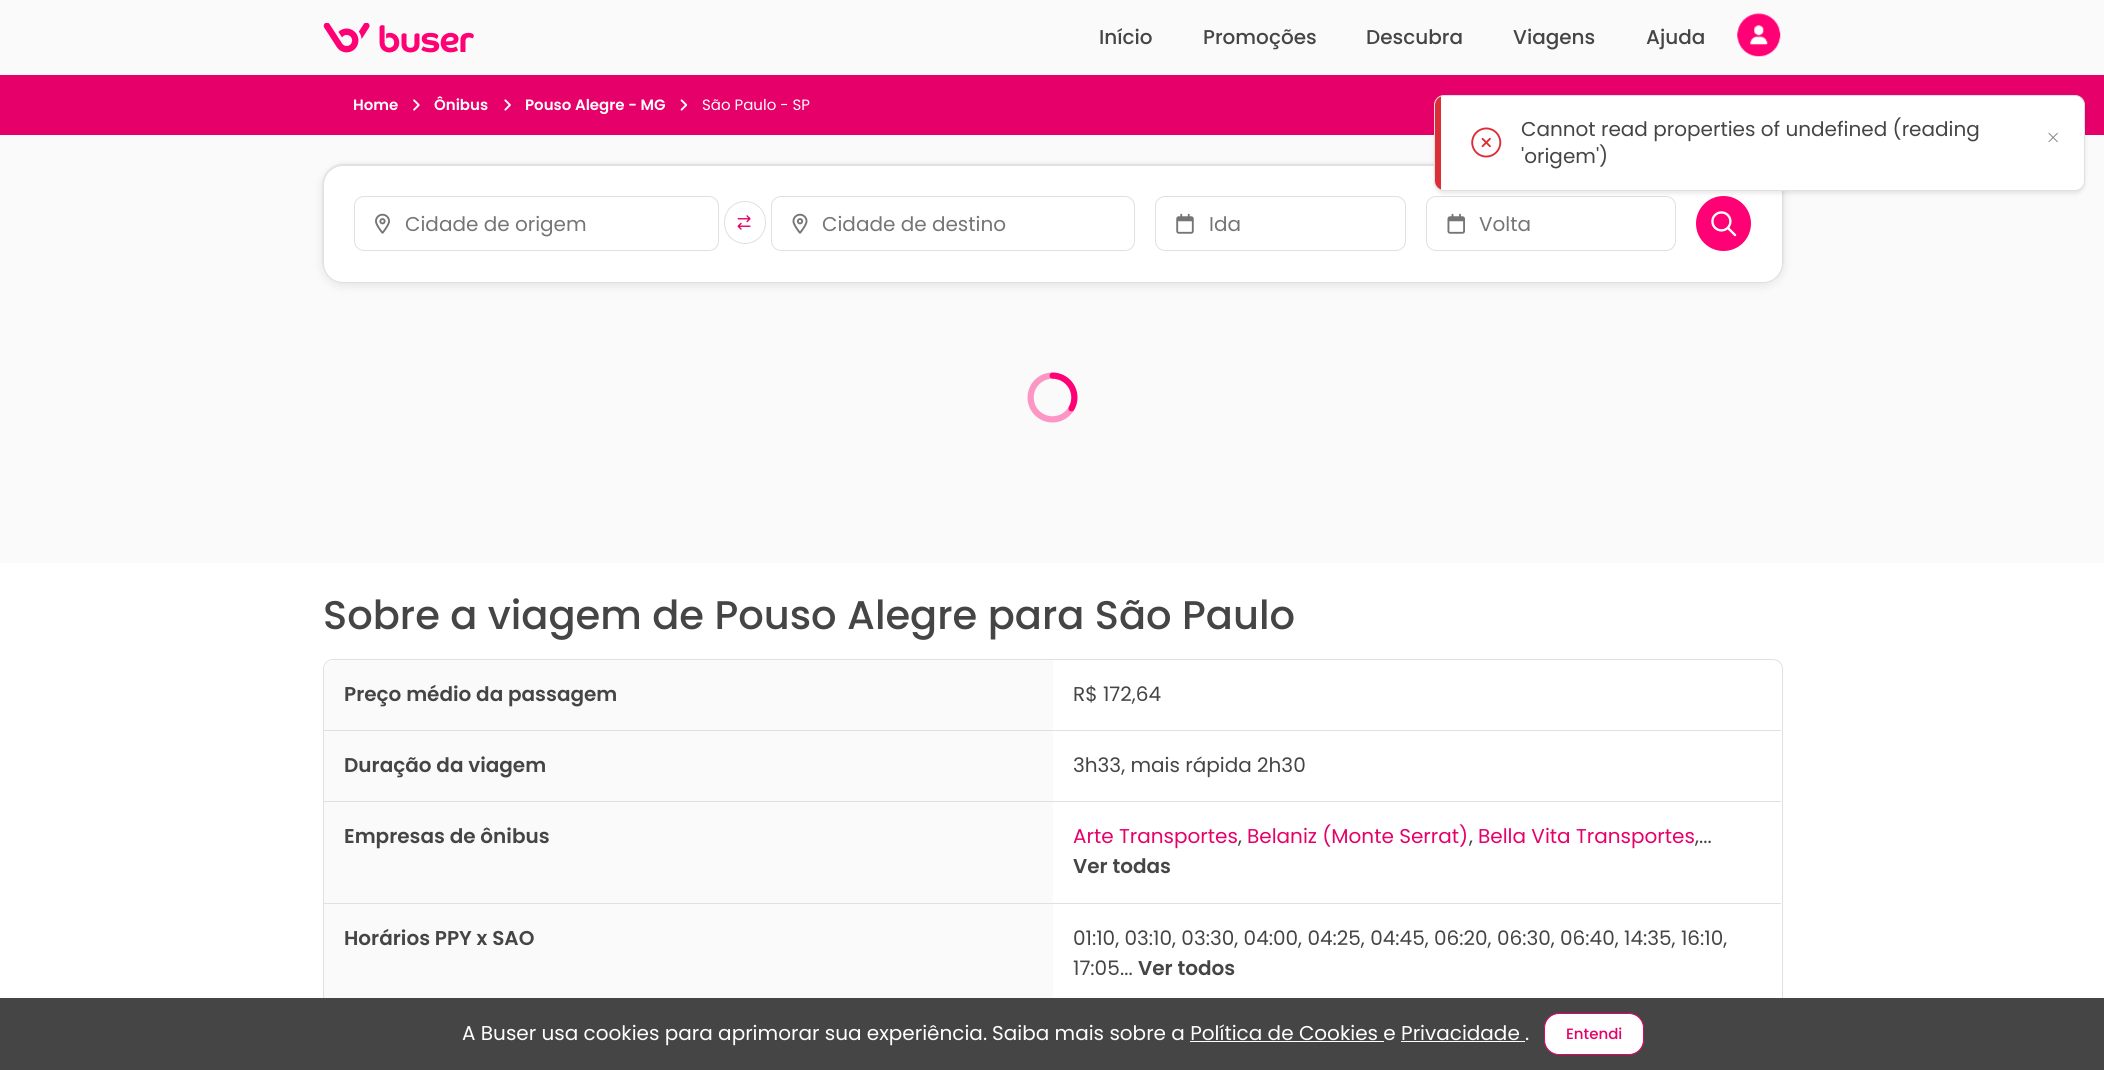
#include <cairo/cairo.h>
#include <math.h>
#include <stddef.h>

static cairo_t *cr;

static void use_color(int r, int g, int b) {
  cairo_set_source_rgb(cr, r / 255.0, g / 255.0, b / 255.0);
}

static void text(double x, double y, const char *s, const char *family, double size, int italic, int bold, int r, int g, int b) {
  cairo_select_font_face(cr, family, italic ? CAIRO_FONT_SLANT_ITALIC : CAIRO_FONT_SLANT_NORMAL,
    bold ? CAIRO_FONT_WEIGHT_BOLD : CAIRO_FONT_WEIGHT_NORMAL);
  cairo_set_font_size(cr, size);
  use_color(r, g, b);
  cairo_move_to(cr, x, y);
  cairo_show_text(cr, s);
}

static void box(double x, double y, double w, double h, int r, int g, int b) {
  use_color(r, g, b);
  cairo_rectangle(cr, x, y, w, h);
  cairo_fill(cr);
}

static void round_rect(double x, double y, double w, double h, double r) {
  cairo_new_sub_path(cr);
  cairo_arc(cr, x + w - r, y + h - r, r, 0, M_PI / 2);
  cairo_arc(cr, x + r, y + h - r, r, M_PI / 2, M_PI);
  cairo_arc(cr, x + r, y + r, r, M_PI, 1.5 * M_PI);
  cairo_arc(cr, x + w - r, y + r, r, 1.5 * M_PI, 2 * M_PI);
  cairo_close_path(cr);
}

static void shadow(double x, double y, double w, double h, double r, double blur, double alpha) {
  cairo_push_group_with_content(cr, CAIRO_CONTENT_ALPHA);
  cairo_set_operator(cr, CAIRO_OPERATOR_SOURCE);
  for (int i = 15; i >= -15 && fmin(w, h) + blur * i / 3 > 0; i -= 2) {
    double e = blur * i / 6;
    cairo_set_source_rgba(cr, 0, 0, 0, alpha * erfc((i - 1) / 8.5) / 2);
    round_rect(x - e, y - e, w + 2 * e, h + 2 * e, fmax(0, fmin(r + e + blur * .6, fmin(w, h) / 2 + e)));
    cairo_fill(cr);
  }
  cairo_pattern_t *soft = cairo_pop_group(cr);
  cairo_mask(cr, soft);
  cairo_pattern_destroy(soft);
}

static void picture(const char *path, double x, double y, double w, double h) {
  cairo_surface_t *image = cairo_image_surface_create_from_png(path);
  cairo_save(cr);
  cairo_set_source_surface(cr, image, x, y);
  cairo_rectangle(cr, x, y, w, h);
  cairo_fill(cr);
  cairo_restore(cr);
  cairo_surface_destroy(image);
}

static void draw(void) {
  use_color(250, 250, 250);
  cairo_paint(cr);
  picture("img_01.png", 323, 23, 151, 30);
  use_color(255, 255, 255);
  cairo_arc(cr, 1758.5, 35.5, 22.5, 0, 2 * M_PI);
  cairo_fill(cr);
  picture("img_02.png", 1737, 13, 44, 44);
  box(0, 75, 2104, 60, 230, 0, 106);
  picture("img_03.png", 413, 99, 7, 12);
  picture("img_04.png", 504, 99, 7, 12);
  picture("img_05.png", 680, 99, 8, 12);
  use_color(0, 0, 0);
  shadow(323, 168, 1460, 117, 20, 5, 0.1);
  shadow(323, 164, 1460, 117, 20, 1, 0.1);
  use_color(255, 255, 255);
  round_rect(323.5, 165.5, 1459, 117, 19.5);
  cairo_fill_preserve(cr);
  use_color(224, 224, 224);
  cairo_set_line_width(cr, 1);
  cairo_stroke(cr);
  round_rect(354.5, 196.5, 364, 54, 9.5);
  cairo_stroke(cr);
  picture("img_06.png", 375, 213, 15, 21);
  round_rect(724.5, 201.5, 41, 42, 20.5);
  cairo_stroke(cr);
  picture("img_07.png", 737, 215, 14, 15);
  round_rect(771.5, 196.5, 363, 54, 9.5);
  cairo_stroke(cr);
  picture("img_08.png", 792, 213, 16, 21);
  round_rect(1155.5, 196.5, 250, 54, 9.5);
  cairo_stroke(cr);
  picture("img_09.png", 1176, 213, 18, 21);
  round_rect(1426.5, 196.5, 249, 54, 9.5);
  cairo_stroke(cr);
  picture("img_10.png", 1447, 213, 18, 21);
  use_color(255, 0, 117);
  cairo_arc(cr, 1723.5, 223.5, 27.5, 0, 2 * M_PI);
  cairo_fill(cr);
  picture("img_11.png", 1711, 211, 26, 26);
  picture("img_12.png", 1027, 372, 51, 51);
  box(0, 563, 2104, 435, 255, 255, 255);
  round_rect(323.5, 659.5, 1459, 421, 9.5);
  use_color(224, 224, 224);
  cairo_stroke(cr);
  use_color(250, 250, 250);
  cairo_new_path(cr);
  cairo_move_to(cr, 333, 660);
  cairo_line_to(cr, 1053, 660);
  cairo_line_to(cr, 1053, 731);
  cairo_line_to(cr, 324, 731);
  cairo_line_to(cr, 324, 669);
  cairo_curve_to(cr, 324, 664, 328, 660, 333, 660);
  cairo_close_path(cr);
  cairo_fill(cr);
  box(324, 730, 1457, 1, 224, 224, 224);
  box(324, 731, 729, 172, 250, 250, 250);
  box(324, 801, 1457, 1, 224, 224, 224);
  box(324, 903, 1457, 1, 224, 224, 224);
  box(324, 904, 729, 94, 250, 250, 250);
  use_color(0, 0, 0);
  shadow(1434, 98, 651, 96, 10, 2, 0.08);
  use_color(255, 255, 255);
  round_rect(1434.5, 95.5, 650, 95, 9.5);
  cairo_fill_preserve(cr);
  use_color(224, 224, 224);
  cairo_stroke(cr);
  cairo_save(cr);
  round_rect(1435, 96, 649, 94, 9);
  cairo_clip(cr);
  box(1435, 96, 6, 94, 220, 46, 54);
  cairo_restore(cr);
  picture("img_13.png", 1471, 127, 31, 31);
  picture("img_14.png", 2048, 132, 10, 11);
  box(0, 998, 2104, 72, 69, 69, 69);
  box(1190, 1041, 194, 1, 255, 255, 255);
  box(1401, 1041, 124, 1, 255, 255, 255);
  round_rect(1544.5, 1013.5, 99, 41, 14.5);
  cairo_fill_preserve(cr);
  use_color(230, 0, 106);
  cairo_stroke(cr);
  text(1099, 44, "Início", "Poppins Medium", 20, 0, 0, 69, 69, 69);
  text(1203, 44, "Promoções", "Poppins Medium", 20, 0, 0, 69, 69, 69);
  text(1366, 44, "Descubra", "Poppins Medium", 20, 0, 0, 69, 69, 69);
  text(1513, 44, "Viagens", "Poppins Medium", 20, 0, 0, 69, 69, 69);
  text(1646, 44, "Ajuda", "Poppins Medium", 20, 0, 0, 69, 69, 69);
  text(353, 110, "Home", "Poppins SemiBold", 15, 0, 0, 255, 255, 255);
  text(434, 110, "Ônibus", "Poppins SemiBold", 15, 0, 0, 255, 255, 255);
  text(525, 110, "Pouso Alegre - MG", "Poppins SemiBold", 15, 0, 0, 255, 255, 255);
  text(702, 110, "São Paulo - SP", "Poppins", 15, 0, 0, 255, 255, 255);
  text(405, 231, "Cidade de origem", "Poppins", 20, 0, 0, 117, 117, 117);
  text(822, 231, "Cidade de destino", "Poppins", 20, 0, 0, 117, 117, 117);
  text(1209, 231, "Ida", "Poppins", 20, 0, 0, 117, 117, 117);
  text(1479, 231, "Volta", "Poppins", 20, 0, 0, 117, 117, 117);
  text(323, 629, "Sobre a viagem de Pouso Alegre para São Paulo", "Poppins Medium", 40, 0, 0, 69, 69, 69);
  text(344, 701, "Preço médio da passagem", "Poppins SemiBold", 20, 0, 0, 69, 69, 69);
  text(1073, 701, "R$ 172,64", "Poppins", 20, 0, 0, 69, 69, 69);
  text(344, 772, "Duração da viagem", "Poppins SemiBold", 20, 0, 0, 69, 69, 69);
  text(1073, 772, "3h33, mais rápida 2h30", "Poppins", 20, 0, 0, 69, 69, 69);
  text(344, 843, "Empresas de ônibus", "Poppins SemiBold", 20, 0, 0, 69, 69, 69);
  text(1073, 843, "Arte Transportes", "Poppins", 20, 0, 0, 230, 0, 106);
  text(1238, 843, ",", "Poppins", 20, 0, 0, 69, 69, 69);
  text(1247, 843, "Belaniz (Monte Serrat)", "Poppins", 20, 0, 0, 230, 0, 106);
  text(1469, 843, ",", "Poppins", 20, 0, 0, 69, 69, 69);
  text(1478, 843, "Bella Vita Transportes", "Poppins", 20, 0, 0, 230, 0, 106);
  text(1695, 843, ",", "Poppins", 20, 0, 0, 69, 69, 69);
  text(1699, 843, "...", "Poppins", 20, 0, 0, 69, 69, 69);
  text(1073, 873, "Ver todas", "Poppins SemiBold", 20, 0, 0, 69, 69, 69);
  text(344, 945, "Horários PPY x SAO", "Poppins SemiBold", 20, 0, 0, 69, 69, 69);
  text(1073, 945, "01:10, 03:10, 03:30, 04:00, 04:25, 04:45, 06:20, 06:30, 06:40, 14:35, 16:10,", "Poppins", 20, 0, 0, 69, 69, 69);
  text(1073, 975, "17:05", "Poppins", 20, 0, 0, 69, 69, 69);
  text(1120, 975, "...", "Poppins", 20, 0, 0, 69, 69, 69);
  text(1138, 975, "Ver todos", "Poppins SemiBold", 20, 0, 0, 69, 69, 69);
  text(1521, 136, "Cannot read properties of undefined (reading", "Poppins", 20, 0, 0, 69, 69, 69);
  text(1521, 163, "'origem')", "Poppins", 20, 0, 0, 69, 69, 69);
  text(462, 1040, "A Buser usa cookies para aprimorar sua experiência.", "Poppins", 20, 0, 0, 255, 255, 255);
  text(992, 1040, "Saiba mais sobre a Política de Cookies e Privacidade .", "Poppins", 20, 0, 0, 255, 255, 255);
  text(1566, 1039, "Entendi", "Poppins Medium", 15, 0, 0, 230, 0, 106);
}

int main(void) {
  cairo_surface_t *surface = cairo_image_surface_create(CAIRO_FORMAT_RGB24, 2104, 1070);
  cr = cairo_create(surface);
  cairo_font_options_t *options = cairo_font_options_create();
  cairo_font_options_set_hint_metrics(options, CAIRO_HINT_METRICS_OFF);
  cairo_font_options_set_hint_style(options, CAIRO_HINT_STYLE_NONE);
  cairo_set_font_options(cr, options);
  cairo_set_miter_limit(cr, 4);
  draw();
  cairo_surface_write_to_png(surface, "out.png");
  cairo_font_options_destroy(options);
  cairo_destroy(cr);
  cairo_surface_destroy(surface);
  return 0;
}
